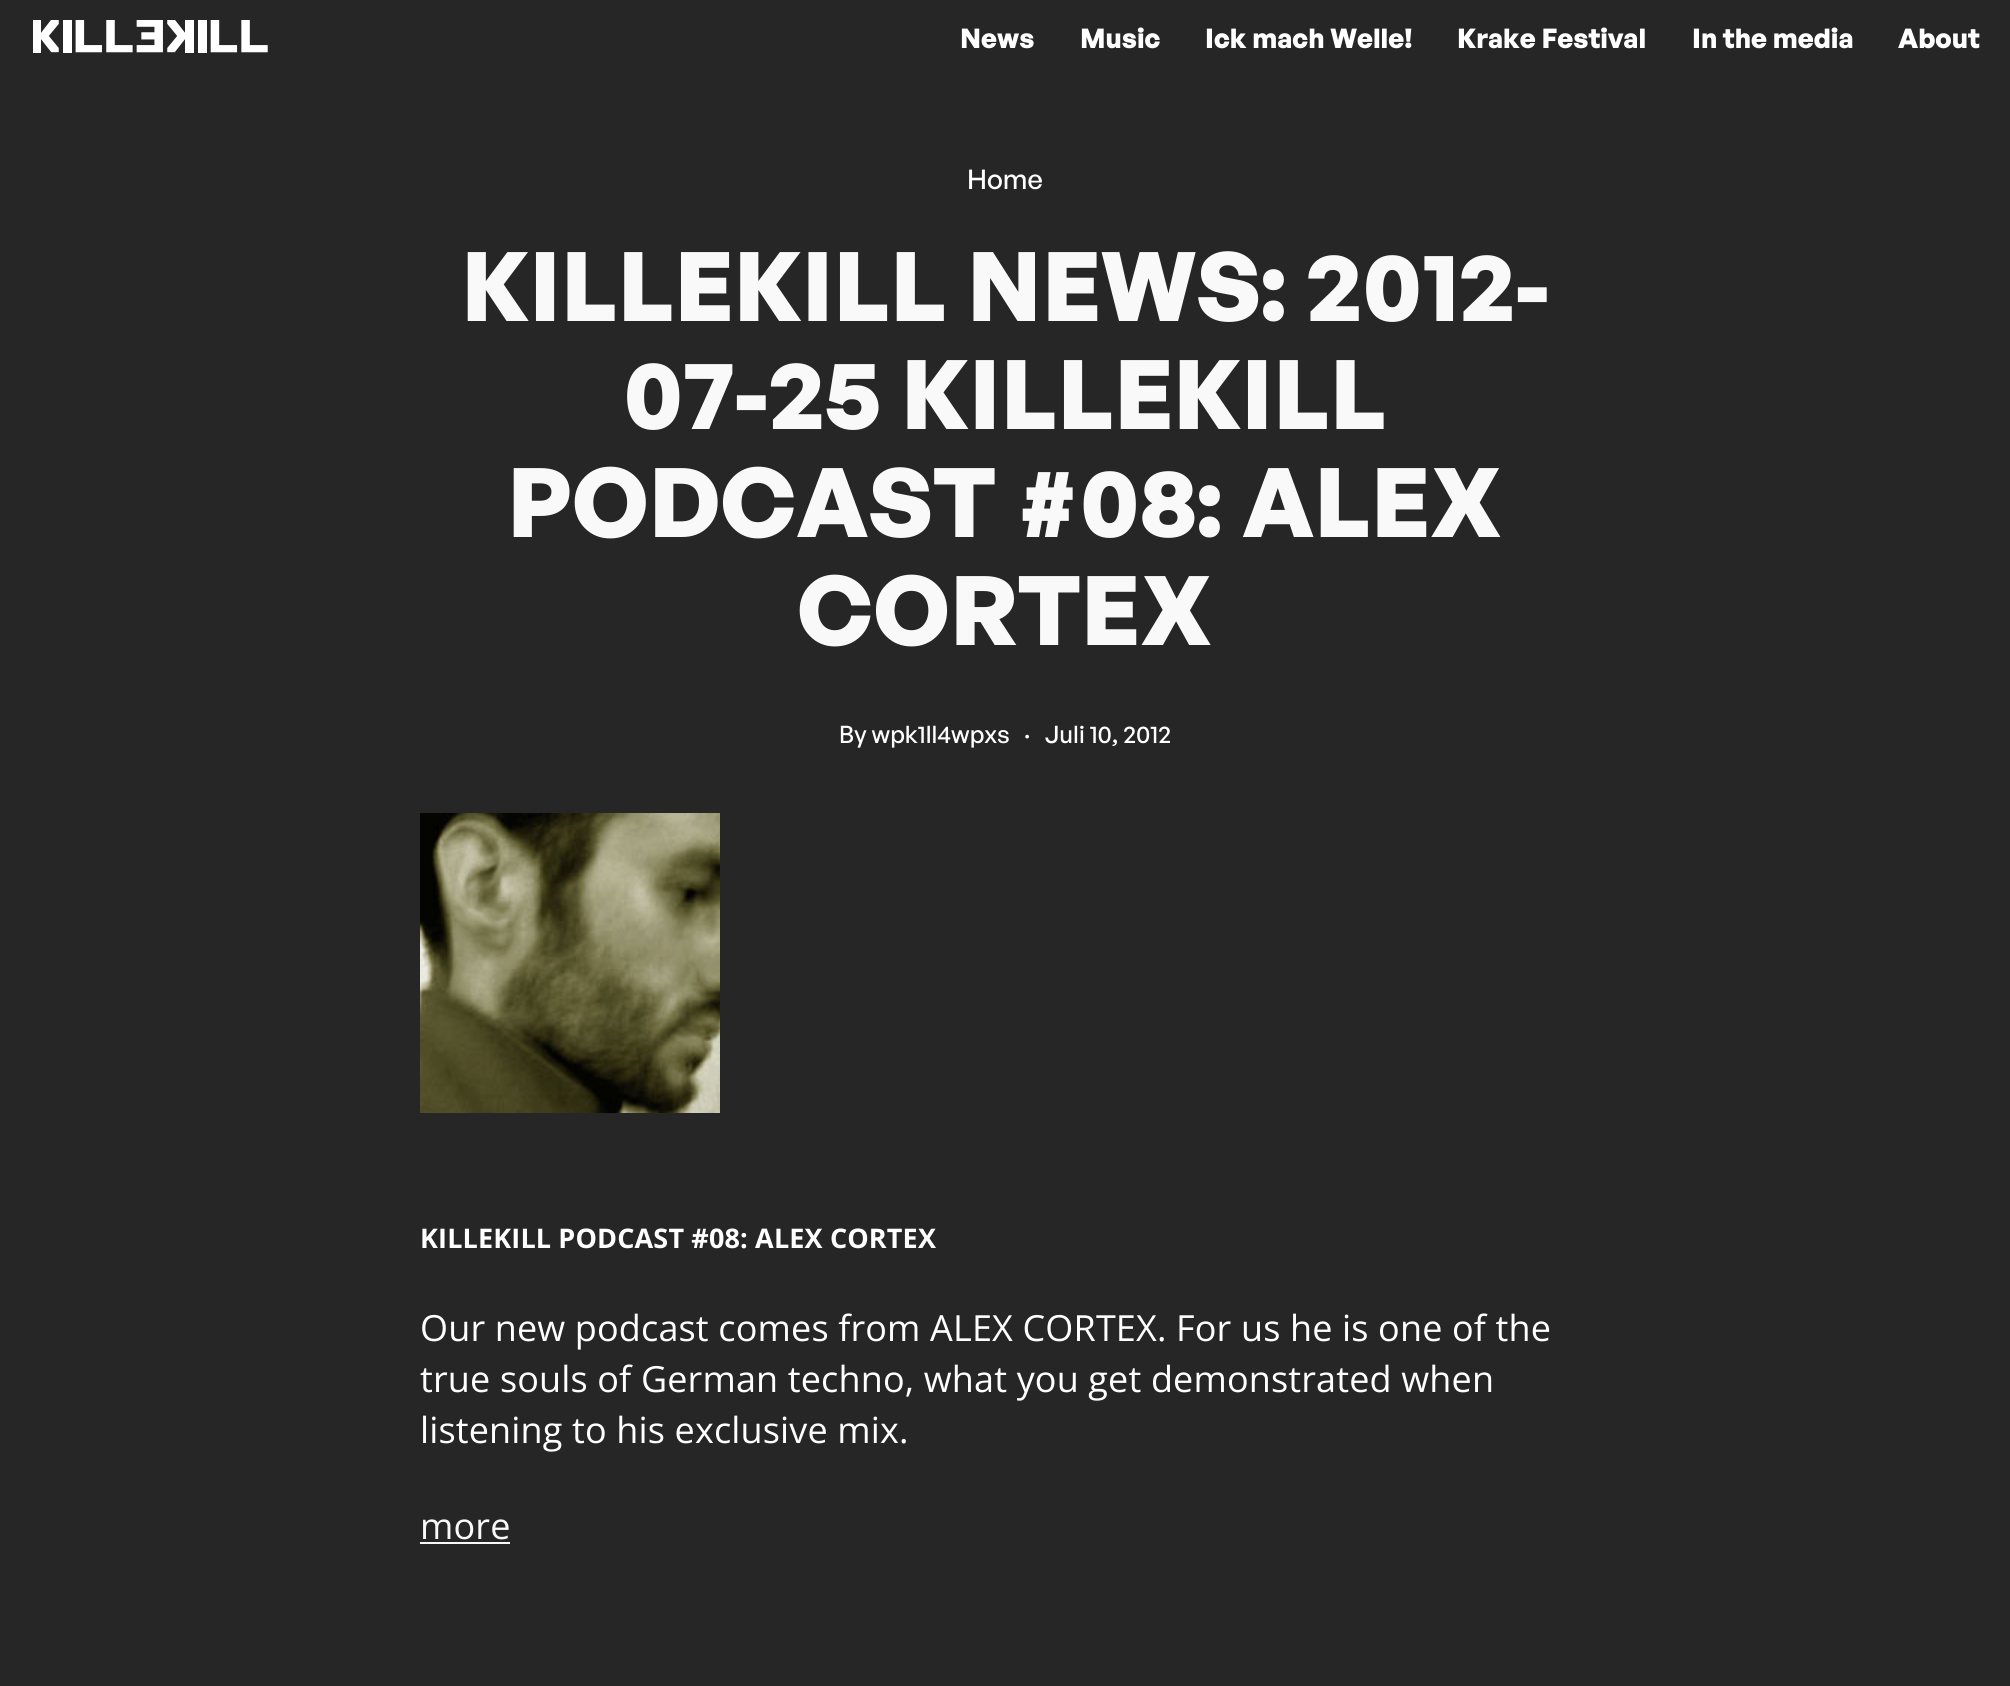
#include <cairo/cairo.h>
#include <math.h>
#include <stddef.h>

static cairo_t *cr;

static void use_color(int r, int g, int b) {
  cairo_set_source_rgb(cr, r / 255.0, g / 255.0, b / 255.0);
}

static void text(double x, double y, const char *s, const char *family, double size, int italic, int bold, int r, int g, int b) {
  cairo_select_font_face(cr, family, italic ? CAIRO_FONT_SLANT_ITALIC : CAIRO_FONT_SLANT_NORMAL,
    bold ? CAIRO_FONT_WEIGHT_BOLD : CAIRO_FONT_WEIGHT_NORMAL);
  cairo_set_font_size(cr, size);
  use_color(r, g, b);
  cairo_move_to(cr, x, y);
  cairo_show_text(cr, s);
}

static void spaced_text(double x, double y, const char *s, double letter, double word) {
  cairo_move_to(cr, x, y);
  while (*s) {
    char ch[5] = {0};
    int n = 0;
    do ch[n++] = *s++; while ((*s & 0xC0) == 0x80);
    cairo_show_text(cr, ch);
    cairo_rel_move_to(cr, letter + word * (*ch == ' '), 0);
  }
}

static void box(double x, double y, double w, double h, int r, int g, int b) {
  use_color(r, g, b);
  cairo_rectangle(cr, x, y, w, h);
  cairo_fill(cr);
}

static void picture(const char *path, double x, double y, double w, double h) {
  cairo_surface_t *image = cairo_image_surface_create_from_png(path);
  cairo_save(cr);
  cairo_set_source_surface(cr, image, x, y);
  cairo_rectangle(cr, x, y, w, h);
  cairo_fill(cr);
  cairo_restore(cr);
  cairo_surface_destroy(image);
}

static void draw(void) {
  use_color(38, 38, 38);
  cairo_paint(cr);
  picture("img_01.png", 33, 20, 235, 33);
  picture("img_02.png", 420, 813, 300, 300);
  box(420, 1542, 90, 2, 249, 249, 249);
  text(960, 48, "News", "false", 27, 0, 1, 255, 255, 255);
  text(1080, 48, "Music", "false", 27, 0, 1, 255, 255, 255);
  text(1205, 48, "Ick mach Welle!", "false", 27, 0, 1, 255, 255, 255);
  text(1457, 48, "Krake Festival", "false", 27, 0, 1, 255, 255, 255);
  text(1692, 48, "In the media", "false", 27, 0, 1, 255, 255, 255);
  text(1898, 48, "About", "false", 27, 0, 1, 255, 255, 255);
  text(967, 189, "Home", "General Sans Medium", 27, 0, 0, 255, 255, 255);
  text(461, 321, "KILLEKILL NEWS: 2012-", "false", 96, 0, 1, 249, 249, 249);
  text(623, 429, "07-25 KILLEKILL", "false", 96, 0, 1, 249, 249, 249);
  text(507, 537, "PODCAST #08: ALEX", "false", 96, 0, 1, 249, 249, 249);
  text(797, 645, "CORTEX", "false", 96, 0, 1, 249, 249, 249);
  text(839, 743, "By wpk1ll4wpxs", "General Sans Medium", 24, 0, 0, 255, 255, 255);
  text(1024, 743, "·", "General Sans Medium", 24, 0, 0, 255, 255, 255);
  text(1045, 743, "Juli 10, 2012", "General Sans Medium", 24, 0, 0, 255, 255, 255);
  cairo_select_font_face(cr, "Open Sans", CAIRO_FONT_SLANT_NORMAL, CAIRO_FONT_WEIGHT_BOLD);
  cairo_set_font_size(cr, 27);
  spaced_text(420, 1248, "KILLEKILL PODCAST #08: ALEX CORTEX", 0.15, 0);
  cairo_select_font_face(cr, "Open Sans", CAIRO_FONT_SLANT_NORMAL, CAIRO_FONT_WEIGHT_NORMAL);
  cairo_set_font_size(cr, 36);
  spaced_text(420, 1341, "Our new podcast comes from ALEX CORTEX. For us he is one of the", 0.15, 0);
  spaced_text(420, 1392, "true souls of German techno, what you get demonstrated when", 0.15, 0);
  spaced_text(420, 1443, "listening to his exclusive mix.", 0.15, 0);
  use_color(249, 249, 249);
  spaced_text(420, 1539, "more", 0.15, 0);
}

int main(void) {
  cairo_surface_t *surface = cairo_image_surface_create(CAIRO_FORMAT_RGB24, 2010, 1686);
  cr = cairo_create(surface);
  cairo_font_options_t *options = cairo_font_options_create();
  cairo_font_options_set_hint_metrics(options, CAIRO_HINT_METRICS_OFF);
  cairo_font_options_set_hint_style(options, CAIRO_HINT_STYLE_NONE);
  cairo_set_font_options(cr, options);
  cairo_set_miter_limit(cr, 4);
  draw();
  cairo_surface_write_to_png(surface, "out.png");
  cairo_font_options_destroy(options);
  cairo_destroy(cr);
  cairo_surface_destroy(surface);
  return 0;
}
